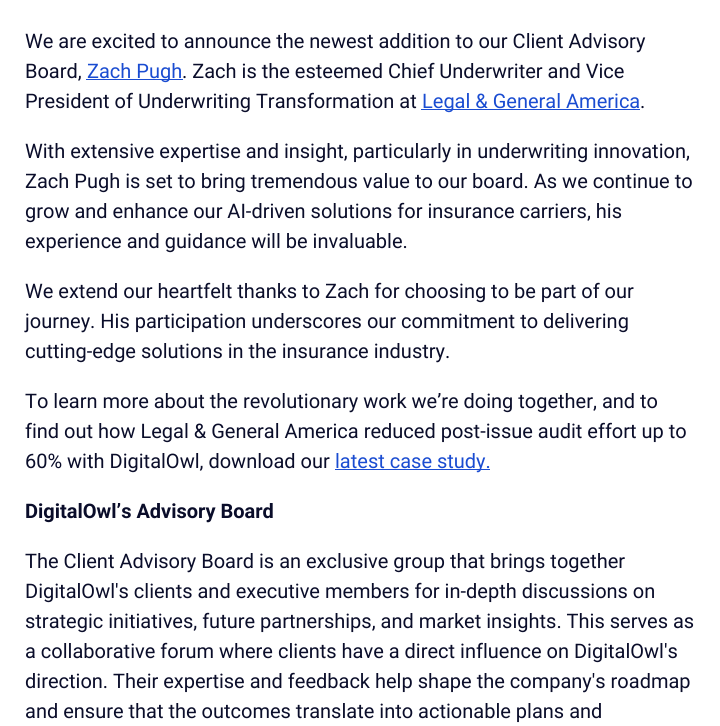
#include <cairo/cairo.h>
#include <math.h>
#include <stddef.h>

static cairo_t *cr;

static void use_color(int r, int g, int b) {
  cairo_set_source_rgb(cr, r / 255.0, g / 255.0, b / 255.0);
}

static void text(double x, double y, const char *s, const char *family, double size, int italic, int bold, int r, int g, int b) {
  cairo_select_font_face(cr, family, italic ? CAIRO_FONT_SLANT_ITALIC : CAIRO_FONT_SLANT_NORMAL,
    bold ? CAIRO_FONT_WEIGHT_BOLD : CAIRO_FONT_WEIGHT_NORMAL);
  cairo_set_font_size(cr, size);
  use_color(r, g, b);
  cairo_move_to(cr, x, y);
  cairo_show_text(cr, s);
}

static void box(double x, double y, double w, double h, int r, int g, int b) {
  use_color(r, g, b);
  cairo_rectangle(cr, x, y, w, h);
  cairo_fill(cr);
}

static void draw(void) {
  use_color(255, 255, 255);
  cairo_paint(cr);
  box(86, 79, 97, 1, 26, 76, 209);
  box(421, 109, 219, 1, 26, 76, 209);
  box(335, 469, 155, 1, 26, 76, 209);
  text(25, 48, "We are excited to announce the newest addition to our Client Advisory", "Roboto", 20, 0, 0, 10, 13, 42);
  text(25, 78, "Board,", "Roboto", 20, 0, 0, 10, 13, 42);
  text(87, 78, "Zach Pugh", "Roboto", 20, 0, 0, 26, 76, 209);
  text(182, 78, ". Zach is the esteemed Chief Underwriter and Vice", "Roboto", 20, 0, 0, 10, 13, 42);
  text(25, 108, "President of Underwriting Transformation at", "Roboto", 20, 0, 0, 10, 13, 42);
  text(422, 108, "Legal & General America", "Roboto", 20, 0, 0, 26, 76, 209);
  text(640, 108, ".", "Roboto", 20, 0, 0, 10, 13, 42);
  text(25, 158, "With extensive expertise and insight, particularly in underwriting innovation,", "Roboto", 20, 0, 0, 10, 13, 42);
  text(25, 188, "Zach Pugh is set to bring tremendous value to our board. As we continue to", "Roboto", 20, 0, 0, 10, 13, 42);
  text(25, 218, "grow and enhance our AI-driven solutions for insurance carriers, his", "Roboto", 20, 0, 0, 10, 13, 42);
  text(25, 248, "experience and guidance will be invaluable.", "Roboto", 20, 0, 0, 10, 13, 42);
  text(25, 298, "We extend our heartfelt thanks to Zach for choosing to be part of our", "Roboto", 20, 0, 0, 10, 13, 42);
  text(25, 328, "journey. His participation underscores our commitment to delivering", "Roboto", 20, 0, 0, 10, 13, 42);
  text(25, 358, "cutting-edge solutions in the insurance industry.", "Roboto", 20, 0, 0, 10, 13, 42);
  text(25, 408, "To learn more about the revolutionary work we’re doing together, and to", "Roboto", 20, 0, 0, 10, 13, 42);
  text(25, 438, "find out how Legal & General America reduced post-issue audit effort up to", "Roboto", 20, 0, 0, 10, 13, 42);
  text(25, 468, "60% with DigitalOwl, download our", "Roboto", 20, 0, 0, 10, 13, 42);
  text(335, 468, "latest case study.", "Roboto", 20, 0, 0, 26, 76, 209);
  text(25, 518, "DigitalOwl’s Advisory Board", "Roboto", 20, 0, 1, 10, 13, 42);
  text(25, 568, "The Client Advisory Board is an exclusive group that brings together", "Roboto", 20, 0, 0, 10, 13, 42);
  text(25, 598, "DigitalOwl's clients and executive members for in-depth discussions on", "Roboto", 20, 0, 0, 10, 13, 42);
  text(25, 628, "strategic initiatives, future partnerships, and market insights. This serves as", "Roboto", 20, 0, 0, 10, 13, 42);
  text(25, 658, "a collaborative forum where clients have a direct influence on DigitalOwl's", "Roboto", 20, 0, 0, 10, 13, 42);
  text(25, 688, "direction. Their expertise and feedback help shape the company's roadmap", "Roboto", 20, 0, 0, 10, 13, 42);
  text(25, 718, "and ensure that the outcomes translate into actionable plans and", "Roboto", 20, 0, 0, 10, 13, 42);
}

int main(void) {
  cairo_surface_t *surface = cairo_image_surface_create(CAIRO_FORMAT_RGB24, 720, 726);
  cr = cairo_create(surface);
  cairo_font_options_t *options = cairo_font_options_create();
  cairo_font_options_set_hint_metrics(options, CAIRO_HINT_METRICS_OFF);
  cairo_font_options_set_hint_style(options, CAIRO_HINT_STYLE_NONE);
  cairo_set_font_options(cr, options);
  cairo_set_miter_limit(cr, 4);
  draw();
  cairo_surface_write_to_png(surface, "out.png");
  cairo_font_options_destroy(options);
  cairo_destroy(cr);
  cairo_surface_destroy(surface);
  return 0;
}
